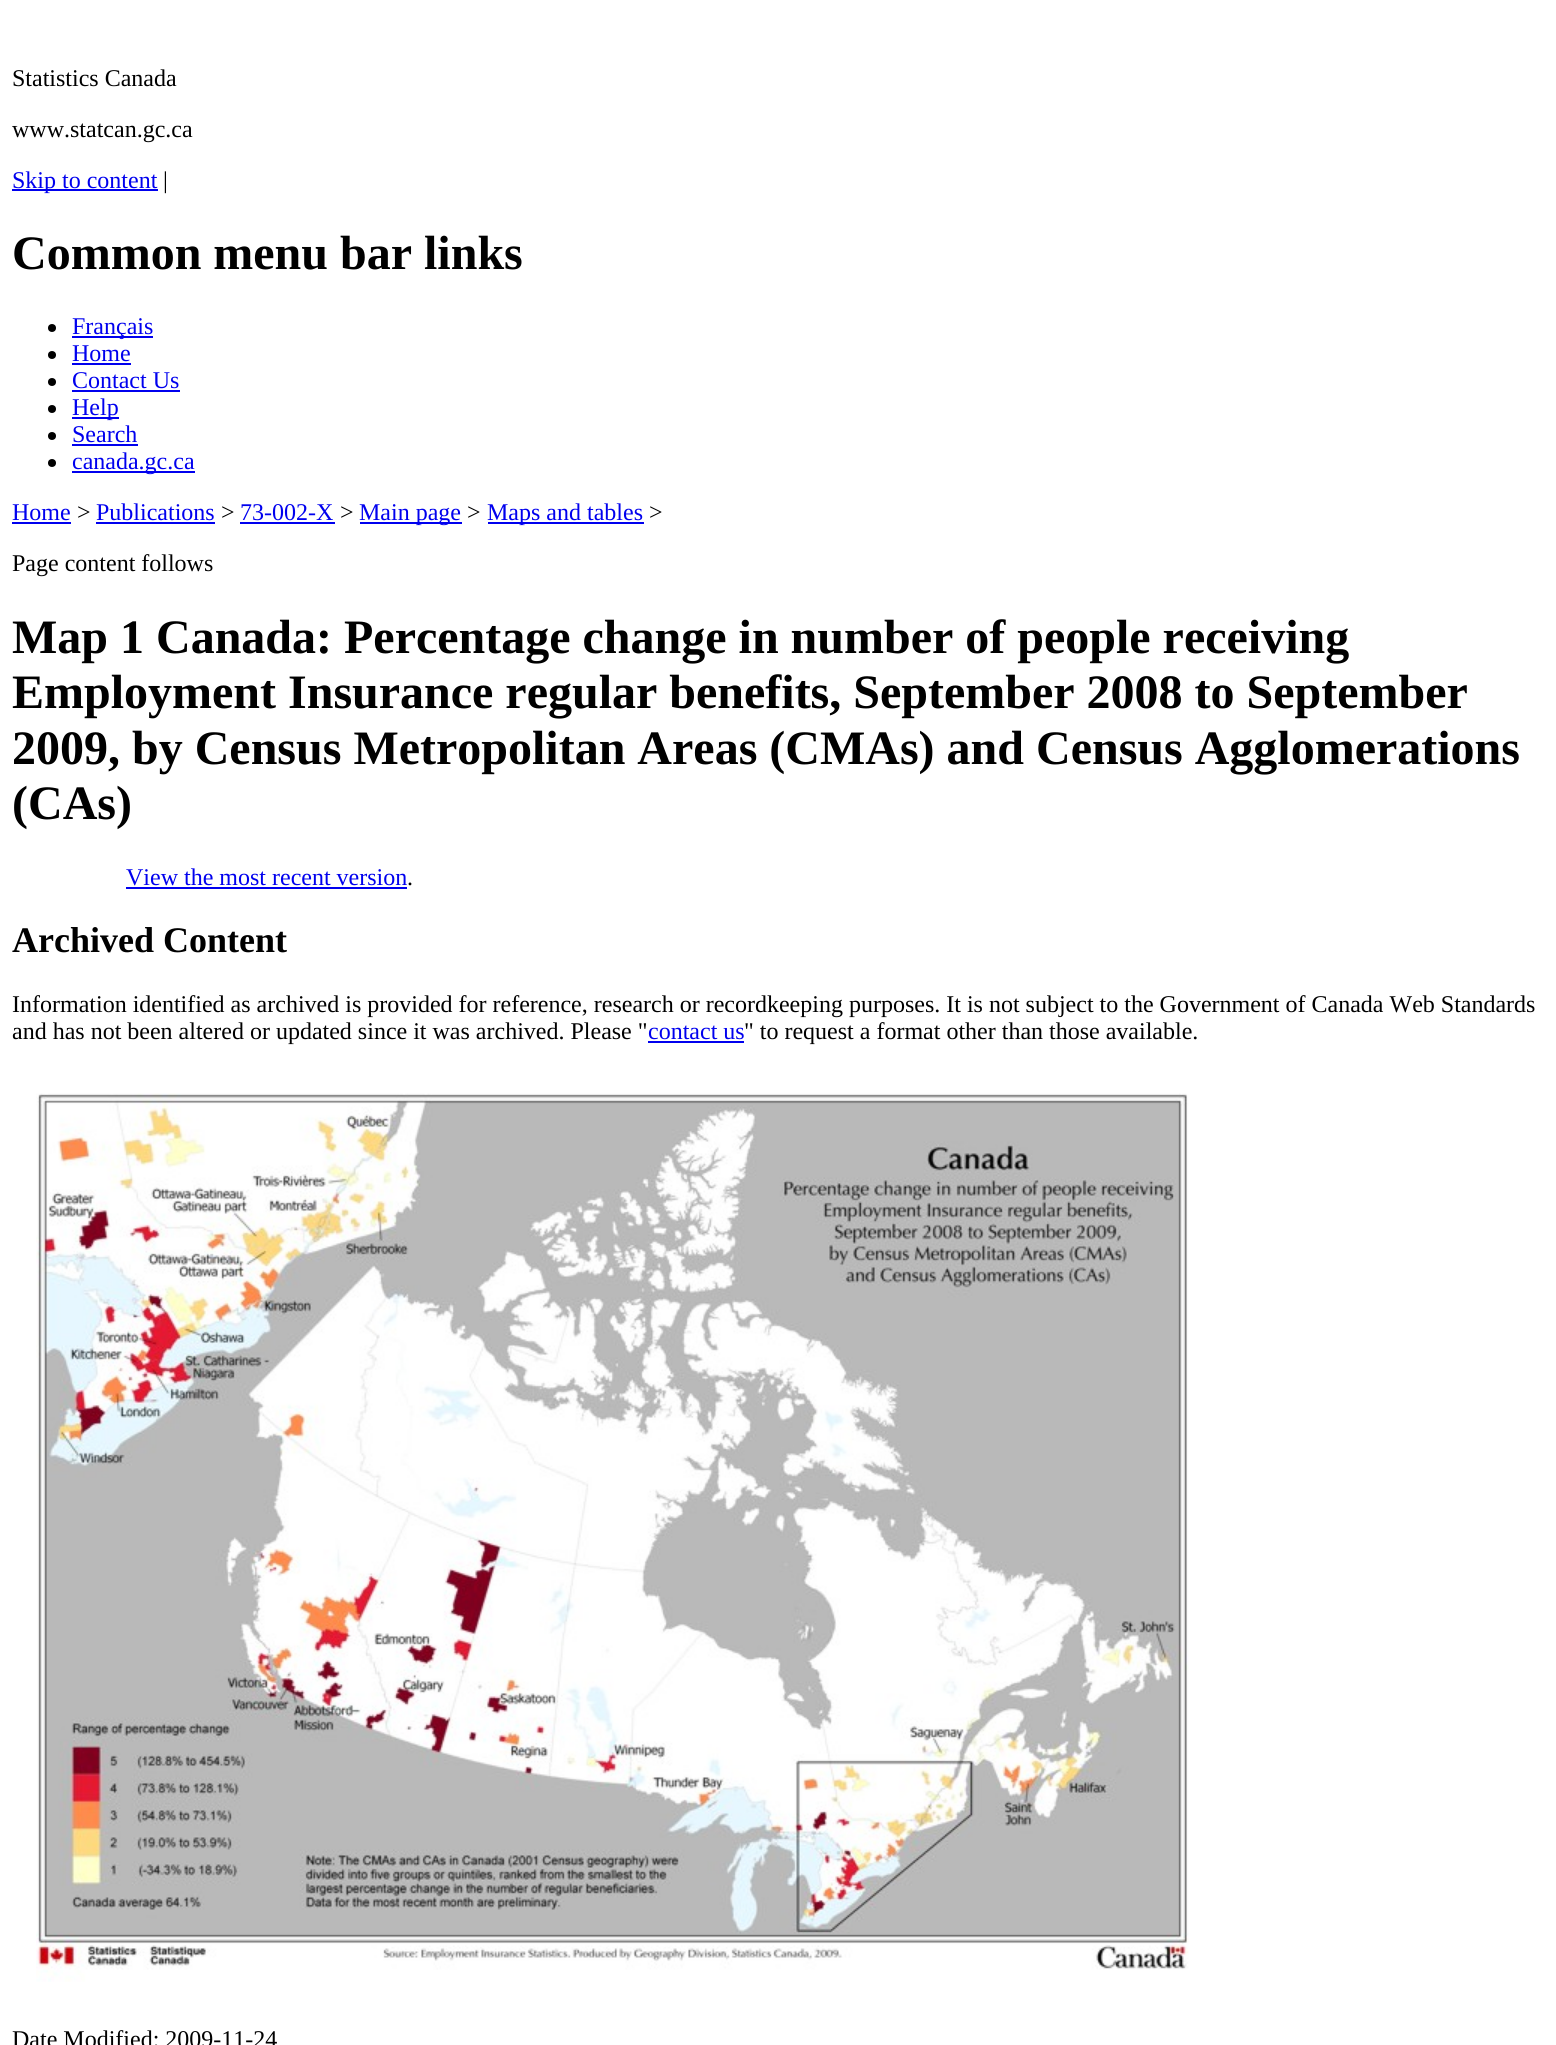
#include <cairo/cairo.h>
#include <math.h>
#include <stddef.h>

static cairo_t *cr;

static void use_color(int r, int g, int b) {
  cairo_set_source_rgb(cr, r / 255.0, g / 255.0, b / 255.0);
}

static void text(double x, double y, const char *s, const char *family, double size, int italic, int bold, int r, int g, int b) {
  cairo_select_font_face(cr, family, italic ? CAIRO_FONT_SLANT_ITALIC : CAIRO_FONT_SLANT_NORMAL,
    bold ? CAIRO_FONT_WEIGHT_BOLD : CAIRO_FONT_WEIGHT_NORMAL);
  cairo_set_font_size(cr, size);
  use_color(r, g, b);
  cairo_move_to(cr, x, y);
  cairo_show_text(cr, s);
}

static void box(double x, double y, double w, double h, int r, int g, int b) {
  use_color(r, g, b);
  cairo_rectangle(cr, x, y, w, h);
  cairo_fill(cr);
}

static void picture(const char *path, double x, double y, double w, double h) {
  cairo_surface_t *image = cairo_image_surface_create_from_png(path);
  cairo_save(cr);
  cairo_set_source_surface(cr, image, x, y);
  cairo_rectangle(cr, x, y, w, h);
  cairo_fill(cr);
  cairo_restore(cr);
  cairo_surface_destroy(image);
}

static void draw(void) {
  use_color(255, 255, 255);
  cairo_paint(cr);
  box(12, 189, 146, 2, 0, 0, 238);
  use_color(0, 0, 0);
  cairo_arc(cr, 52, 328, 4, 0, 2 * M_PI);
  cairo_fill(cr);
  box(72, 336, 81, 2, 0, 0, 238);
  use_color(0, 0, 0);
  cairo_arc(cr, 52, 355, 4, 0, 2 * M_PI);
  cairo_fill(cr);
  box(72, 363, 59, 2, 0, 0, 238);
  use_color(0, 0, 0);
  cairo_arc(cr, 52, 382, 4, 0, 2 * M_PI);
  cairo_fill(cr);
  box(72, 390, 108, 2, 0, 0, 238);
  use_color(0, 0, 0);
  cairo_arc(cr, 52, 409, 4, 0, 2 * M_PI);
  cairo_fill(cr);
  box(72, 417, 47, 2, 0, 0, 238);
  use_color(0, 0, 0);
  cairo_arc(cr, 52, 436, 4, 0, 2 * M_PI);
  cairo_fill(cr);
  box(72, 444, 66, 2, 0, 0, 238);
  use_color(0, 0, 0);
  cairo_arc(cr, 52, 463, 4, 0, 2 * M_PI);
  cairo_fill(cr);
  box(72, 471, 123, 2, 0, 0, 238);
  box(12, 522, 59, 2, 0, 0, 238);
  box(96, 522, 119, 2, 0, 0, 238);
  box(240, 522, 95, 2, 0, 0, 238);
  box(360, 522, 102, 2, 0, 0, 238);
  box(488, 522, 156, 2, 0, 0, 238);
  box(126, 887, 281, 2, 0, 0, 238);
  box(648, 1041, 96, 2, 0, 0, 238);
  picture("img_01.png", 36, 1093, 1153, 889);
  text(12, 86, "Statistics Canada", "Liberation Serif", 24, 0, 0, 0, 0, 0);
  text(12, 137, "www.statcan.gc.ca", "Liberation Serif", 24, 0, 0, 0, 0, 0);
  text(12, 188, "Skip to content", "Liberation Serif", 24, 0, 0, 0, 0, 238);
  text(163, 188, "|", "Liberation Serif", 24, 0, 0, 0, 0, 0);
  text(12, 269, "Common menu bar links", "Liberation Serif", 48, 0, 1, 0, 0, 0);
  text(72, 334, "Français", "Liberation Serif", 24, 0, 0, 0, 0, 238);
  text(72, 361, "Home", "Liberation Serif", 24, 0, 0, 0, 0, 238);
  text(72, 388, "Contact Us", "Liberation Serif", 24, 0, 0, 0, 0, 238);
  text(72, 415, "Help", "Liberation Serif", 24, 0, 0, 0, 0, 238);
  text(72, 442, "Search", "Liberation Serif", 24, 0, 0, 0, 0, 238);
  text(72, 469, "canada.gc.ca", "Liberation Serif", 24, 0, 0, 0, 0, 238);
  text(12, 520, "Home", "Liberation Serif", 24, 0, 0, 0, 0, 238);
  text(77, 520, ">", "Liberation Serif", 24, 0, 0, 0, 0, 0);
  text(96, 520, "Publications", "Liberation Serif", 24, 0, 0, 0, 0, 238);
  text(221, 520, ">", "Liberation Serif", 24, 0, 0, 0, 0, 0);
  text(240, 520, "73-002-X", "Liberation Serif", 24, 0, 0, 0, 0, 238);
  text(340, 520, ">", "Liberation Serif", 24, 0, 0, 0, 0, 0);
  text(359, 520, "Main page", "Liberation Serif", 24, 0, 0, 0, 0, 238);
  text(467, 520, ">", "Liberation Serif", 24, 0, 0, 0, 0, 0);
  text(487, 520, "Maps and tables", "Liberation Serif", 24, 0, 0, 0, 0, 238);
  text(649, 520, ">", "Liberation Serif", 24, 0, 0, 0, 0, 0);
  text(12, 571, "Page content follows", "Liberation Serif", 24, 0, 0, 0, 0, 0);
  text(12, 653, "Map 1 Canada: Percentage change in number of people receiving", "Liberation Serif", 48, 0, 1, 0, 0, 0);
  text(12, 708, "Employment Insurance regular benefits, September 2008 to September", "Liberation Serif", 48, 0, 1, 0, 0, 0);
  text(12, 764, "2009, by Census Metropolitan Areas (CMAs) and Census Agglomerations", "Liberation Serif", 48, 0, 1, 0, 0, 0);
  text(12, 819, "(CAs)", "Liberation Serif", 48, 0, 1, 0, 0, 0);
  text(126, 885, "View the most recent version", "Liberation Serif", 24, 0, 0, 0, 0, 238);
  text(407, 885, ".", "Liberation Serif", 24, 0, 0, 0, 0, 0);
  text(12, 952, "Archived Content", "Liberation Serif", 36, 0, 1, 0, 0, 0);
  text(12, 1012, "Information identified as archived is provided for reference, research or recordkeeping purposes. It is not subject to the Government of Canada Web Standards", "Liberation Serif", 24, 0, 0, 0, 0, 0);
  text(12, 1039, "and has not been altered or updated since it was archived. Please \"", "Liberation Serif", 24, 0, 0, 0, 0, 0);
  text(648, 1039, "contact us", "Liberation Serif", 24, 0, 0, 0, 0, 238);
  text(744, 1039, "\" to request a format other than those available.", "Liberation Serif", 24, 0, 0, 0, 0, 0);
  text(12, 2047, "Date Modified: 2009-11-24", "Liberation Serif", 24, 0, 0, 0, 0, 0);
}

int main(void) {
  cairo_surface_t *surface = cairo_image_surface_create(CAIRO_FORMAT_RGB24, 1556, 2045);
  cr = cairo_create(surface);
  cairo_font_options_t *options = cairo_font_options_create();
  cairo_font_options_set_hint_metrics(options, CAIRO_HINT_METRICS_OFF);
  cairo_font_options_set_hint_style(options, CAIRO_HINT_STYLE_NONE);
  cairo_set_font_options(cr, options);
  cairo_set_miter_limit(cr, 4);
  draw();
  cairo_surface_write_to_png(surface, "out.png");
  cairo_font_options_destroy(options);
  cairo_destroy(cr);
  cairo_surface_destroy(surface);
  return 0;
}
